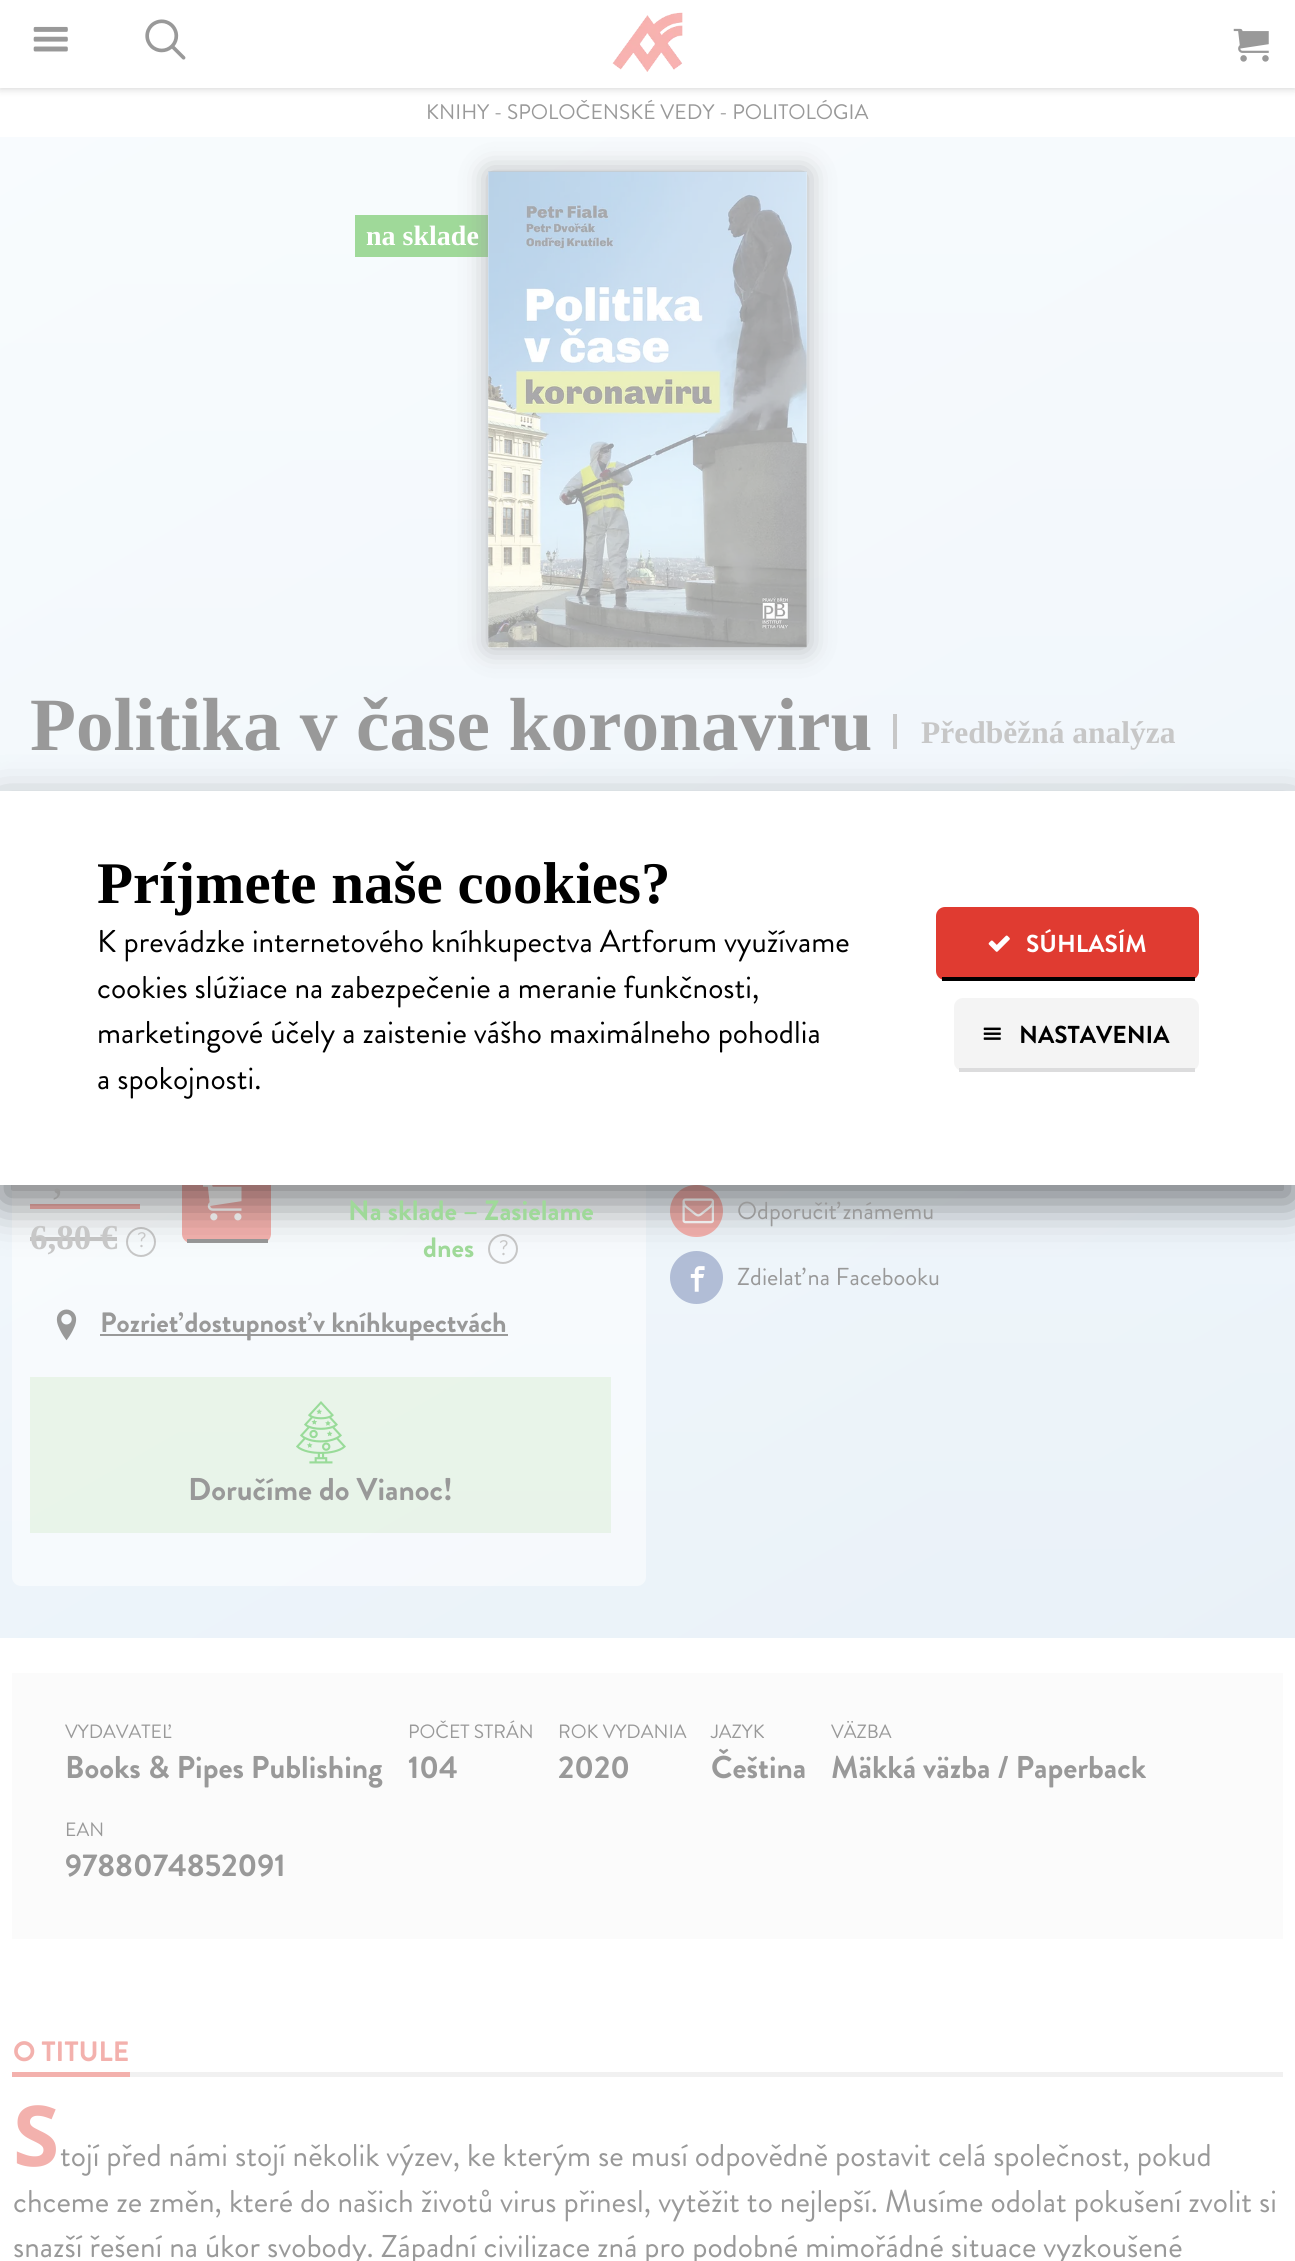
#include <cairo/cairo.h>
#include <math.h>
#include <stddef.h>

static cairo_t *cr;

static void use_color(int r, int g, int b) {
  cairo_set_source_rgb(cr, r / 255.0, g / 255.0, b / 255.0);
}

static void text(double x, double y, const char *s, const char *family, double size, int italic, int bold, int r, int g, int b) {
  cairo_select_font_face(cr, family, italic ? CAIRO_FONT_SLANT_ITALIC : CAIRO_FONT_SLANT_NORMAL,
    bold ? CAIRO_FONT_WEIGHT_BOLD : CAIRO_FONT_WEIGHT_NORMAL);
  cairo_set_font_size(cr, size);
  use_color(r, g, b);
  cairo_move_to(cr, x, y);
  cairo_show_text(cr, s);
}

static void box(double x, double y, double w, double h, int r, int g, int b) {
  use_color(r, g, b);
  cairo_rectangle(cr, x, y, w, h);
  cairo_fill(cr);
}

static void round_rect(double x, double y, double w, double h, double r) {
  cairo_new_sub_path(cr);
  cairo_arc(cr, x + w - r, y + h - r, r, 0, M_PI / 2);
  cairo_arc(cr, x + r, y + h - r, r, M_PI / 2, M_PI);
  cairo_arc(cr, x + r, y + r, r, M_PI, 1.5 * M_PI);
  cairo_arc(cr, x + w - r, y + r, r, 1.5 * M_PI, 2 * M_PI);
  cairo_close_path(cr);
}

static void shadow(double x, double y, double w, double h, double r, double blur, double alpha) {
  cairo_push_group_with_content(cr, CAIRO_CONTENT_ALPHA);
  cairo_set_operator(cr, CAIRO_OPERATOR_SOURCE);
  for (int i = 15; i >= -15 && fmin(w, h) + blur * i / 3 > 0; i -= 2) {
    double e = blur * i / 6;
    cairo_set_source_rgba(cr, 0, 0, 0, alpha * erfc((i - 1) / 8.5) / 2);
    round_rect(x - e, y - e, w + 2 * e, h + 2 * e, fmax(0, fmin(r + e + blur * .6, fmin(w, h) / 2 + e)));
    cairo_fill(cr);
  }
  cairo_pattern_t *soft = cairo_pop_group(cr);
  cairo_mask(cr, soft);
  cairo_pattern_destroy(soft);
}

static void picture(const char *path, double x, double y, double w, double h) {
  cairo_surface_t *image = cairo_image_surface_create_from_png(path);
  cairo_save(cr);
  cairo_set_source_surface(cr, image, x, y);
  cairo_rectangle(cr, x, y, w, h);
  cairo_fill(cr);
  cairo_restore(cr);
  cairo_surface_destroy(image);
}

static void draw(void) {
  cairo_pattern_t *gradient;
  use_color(255, 255, 255);
  cairo_paint(cr);
  use_color(153, 153, 153);
  shadow(0, 0, 1295, 88, 0, 4.5, 0.5);
  box(0, 0, 1295, 88, 255, 255, 255);
  picture("img_01.png", 33, 26, 35, 26);
  picture("img_02.png", 145, 19, 41, 41);
  picture("img_03.png", 612, 12, 71, 60);
  picture("img_04.png", 1233, 28, 36, 34);
  gradient = cairo_pattern_create_linear(1134, 1731, 161, 44);
  cairo_pattern_add_color_stop_rgba(gradient, 0, 0.827, 0.89, 0.945, 1);
  cairo_pattern_add_color_stop_rgba(gradient, 1, 0.906, 0.953, 0.984, 1);
  cairo_set_source(cr, gradient);
  cairo_pattern_destroy(gradient);
  cairo_rectangle(cr, 0, 137, 1295, 1501);
  cairo_fill(cr);
  gradient = cairo_pattern_create_linear(647, 136, 648, 1638);
  cairo_pattern_add_color_stop_rgba(gradient, 0, 1, 1, 1, 0.7);
  cairo_pattern_add_color_stop_rgba(gradient, 1, 1, 1, 1, 0.5);
  cairo_set_source(cr, gradient);
  cairo_pattern_destroy(gradient);
  cairo_rectangle(cr, 0, 137, 1295, 1501);
  cairo_fill(cr);
  box(355, 215, 133, 42, 159, 217, 153);
  picture("img_05.png", 488, 171, 319, 477);
  cairo_save(cr);
  cairo_set_fill_rule(cr, CAIRO_FILL_RULE_EVEN_ODD);
  cairo_new_path(cr);
  cairo_move_to(cr, 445, 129);
  cairo_line_to(cr, 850, 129);
  cairo_line_to(cr, 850, 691);
  cairo_line_to(cr, 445, 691);
  cairo_close_path(cr);
  cairo_move_to(cr, 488, 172);
  cairo_line_to(cr, 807, 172);
  cairo_line_to(cr, 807, 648);
  cairo_line_to(cr, 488, 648);
  cairo_close_path(cr);
  cairo_clip(cr);
  use_color(153, 153, 153);
  shadow(488, 172, 319, 476, 0, 14, 0.7);
  cairo_restore(cr);
  box(893, 714, 4, 35, 199, 199, 199);
  cairo_set_source_rgba(cr, 1, 1, 1, 0.5);
  round_rect(12, 1110, 634, 476, 9);
  cairo_fill(cr);
  box(30, 1204, 110, 5, 243, 177, 173);
  box(30, 1237, 87, 4, 199, 199, 199);
  cairo_arc(cr, 141, 1242, 14, 0, 2 * M_PI);
  cairo_stroke(cr);
  use_color(243, 177, 173);
  round_rect(182, 1155, 89, 88, 9);
  cairo_fill(cr);
  box(187, 1239, 81, 4, 153, 153, 153);
  picture("img_06.png", 203, 1185, 39, 36);
  cairo_arc(cr, 503, 1249, 14, 0, 2 * M_PI);
  use_color(199, 199, 199);
  cairo_stroke(cr);
  picture("img_07.png", 56, 1309, 21, 32);
  box(100, 1334, 408, 2, 153, 153, 153);
  cairo_set_source_rgba(cr, 0.694, 0.878, 0.62, 0.2);
  cairo_rectangle(cr, 30, 1377, 581, 156);
  cairo_fill(cr);
  picture("img_08.png", 296, 1401, 50, 63);
  use_color(243, 177, 173);
  round_rect(670, 1185, 53, 52, 26);
  cairo_fill(cr);
  picture("img_09.png", 682, 1198, 32, 26);
  use_color(177, 189, 214);
  cairo_arc(cr, 696.5, 1277.5, 26.5, 0, 2 * M_PI);
  cairo_fill(cr);
  picture("img_10.png", 690, 1266, 15, 26);
  box(12, 1673, 1271, 266, 251, 251, 251);
  box(130, 2072, 1153, 5, 241, 241, 241);
  box(12, 2072, 118, 5, 243, 177, 173);
  use_color(0, 0, 0);
  shadow(0, 809, 1295, 393, 0, 22, 0.5);
  box(0, 791, 1295, 394, 255, 255, 255);
  use_color(224, 59, 49);
  round_rect(936, 907, 263, 73, 9);
  cairo_fill(cr);
  box(942, 977, 253, 4, 0, 0, 0);
  picture("img_11.png", 988, 935, 22, 17);
  use_color(244, 244, 244);
  round_rect(954, 998, 245, 73, 9);
  cairo_fill(cr);
  box(959, 1068, 236, 4, 220, 220, 221);
  picture("img_12.png", 983, 1027, 18, 13);
  text(426, 119, "KNIHY - SPOLOČENSKÉ VEDY - POLITOLÓGIA", "Brandon Grotesque", 21, 0, 0, 153, 153, 153);
  text(366, 245, "na sklade", "Liberation Serif", 28, 0, 1, 255, 255, 255);
  text(30, 750, "Politika v čase koronaviru", "Liberation Serif", 75.25, 0, 1, 153, 153, 153);
  text(921, 743, "Předběžná analýza", "Liberation Serif", 31.5, 0, 1, 199, 199, 199);
  text(52, 1193, ",", "Liberation Serif", 44, 0, 0, 153, 153, 153);
  text(30, 1249, "6,80 €", "Liberation Serif", 35, 0, 1, 199, 199, 199);
  text(137, 1247, "?", "Brandon Grotesque", 21, 0, 0, 199, 199, 199);
  text(348, 1220, "Na sklade – Zasielame", "Brandon Grotesque", 28, 0, 1, 159, 217, 153);
  text(423, 1257, "dnes", "Brandon Grotesque", 28, 0, 1, 159, 217, 153);
  text(499, 1255, "?", "Brandon Grotesque", 21, 0, 0, 199, 199, 199);
  text(100, 1332, "Pozrieť dostupnosť v kníhkupectvách", "Brandon Grotesque", 28, 0, 1, 153, 153, 153);
  text(188, 1500, "Doručíme do Vianoc!", "Brandon Grotesque", 31.5, 0, 1, 153, 153, 153);
  text(737, 1219, "Odporučiť známemu", "Brandon Grotesque", 24.5, 0, 0, 153, 153, 153);
  text(737, 1285, "Zdielať na Facebooku", "Brandon Grotesque", 24.5, 0, 0, 153, 153, 153);
  text(65, 1738, "VYDAVATEĽ", "Brandon Grotesque", 19.25, 0, 0, 153, 153, 153);
  text(65, 1778, "Books & Pipes Publishing", "Brandon Grotesque", 31.5, 0, 1, 153, 153, 153);
  text(408, 1738, "POČET STRÁN", "Brandon Grotesque", 19.25, 0, 0, 153, 153, 153);
  text(408, 1778, "104", "Brandon Grotesque", 31.5, 0, 1, 153, 153, 153);
  text(558, 1738, "ROK VYDANIA", "Brandon Grotesque", 19.25, 0, 0, 153, 153, 153);
  text(558, 1778, "2020", "Brandon Grotesque", 31.5, 0, 1, 153, 153, 153);
  text(711, 1738, "JAZYK", "Brandon Grotesque", 19.25, 0, 0, 153, 153, 153);
  text(711, 1778, "Čeština", "Brandon Grotesque", 31.5, 0, 1, 153, 153, 153);
  text(831, 1738, "VÄZBA", "Brandon Grotesque", 19.25, 0, 0, 153, 153, 153);
  text(831, 1778, "Mäkká väzba / Paperback", "Brandon Grotesque", 31.5, 0, 1, 153, 153, 153);
  text(65, 1836, "EAN", "Brandon Grotesque", 19.25, 0, 0, 153, 153, 153);
  text(65, 1876, "9788074852091", "Brandon Grotesque", 31.5, 0, 1, 153, 153, 153);
  text(13, 2061, "O TITULE", "Brandon Grotesque", 28, 0, 1, 243, 177, 173);
  text(13, 2166, "S", "Noto Sans", 84, 0, 1, 243, 177, 173);
  text(60, 2166, "tojí před námi stojí několik výzev, ke kterým se musí odpovědně postavit celá společnost, pokud", "Brandon Grotesque", 31.5, 0, 0, 153, 153, 153);
  text(13, 2212, "chceme ze změn, které do našich životů virus přinesl, vytěžit to nejlepší. Musíme odolat pokušení zvolit si", "Brandon Grotesque", 31.5, 0, 0, 153, 153, 153);
  text(13, 2257, "snazší řešení na úkor svobody. Západní civilizace zná pro podobné mimořádné situace vyzkoušené", "Brandon Grotesque", 31.5, 0, 0, 153, 153, 153);
  text(97, 903, "Príjmete naše cookies?", "Liberation Serif", 59, 0, 1, 0, 0, 0);
  text(97, 952, "K prevádzke internetového kníhkupectva Artforum využívame", "Brandon Grotesque", 31.5, 0, 0, 0, 0, 0);
  text(97, 998, "cookies slúžiace na zabezpečenie a meranie funkčnosti,", "Brandon Grotesque", 31.5, 0, 0, 0, 0, 0);
  text(97, 1043, "marketingové účely a zaistenie vášho maximálneho pohodlia", "Brandon Grotesque", 31.5, 0, 0, 0, 0, 0);
  text(97, 1089, "a spokojnosti.", "Brandon Grotesque", 31.5, 0, 0, 0, 0, 0);
  text(1026, 952, "SÚHLASÍM", "Brandon Grotesque", 24.5, 0, 1, 255, 255, 255);
  text(1019, 1043, "NASTAVENIA", "Brandon Grotesque", 24.5, 0, 1, 0, 0, 0);
}

int main(void) {
  cairo_surface_t *surface = cairo_image_surface_create(CAIRO_FORMAT_RGB24, 1295, 2261);
  cr = cairo_create(surface);
  cairo_font_options_t *options = cairo_font_options_create();
  cairo_font_options_set_hint_metrics(options, CAIRO_HINT_METRICS_OFF);
  cairo_font_options_set_hint_style(options, CAIRO_HINT_STYLE_NONE);
  cairo_set_font_options(cr, options);
  cairo_set_miter_limit(cr, 4);
  draw();
  cairo_surface_write_to_png(surface, "out.png");
  cairo_font_options_destroy(options);
  cairo_destroy(cr);
  cairo_surface_destroy(surface);
  return 0;
}
